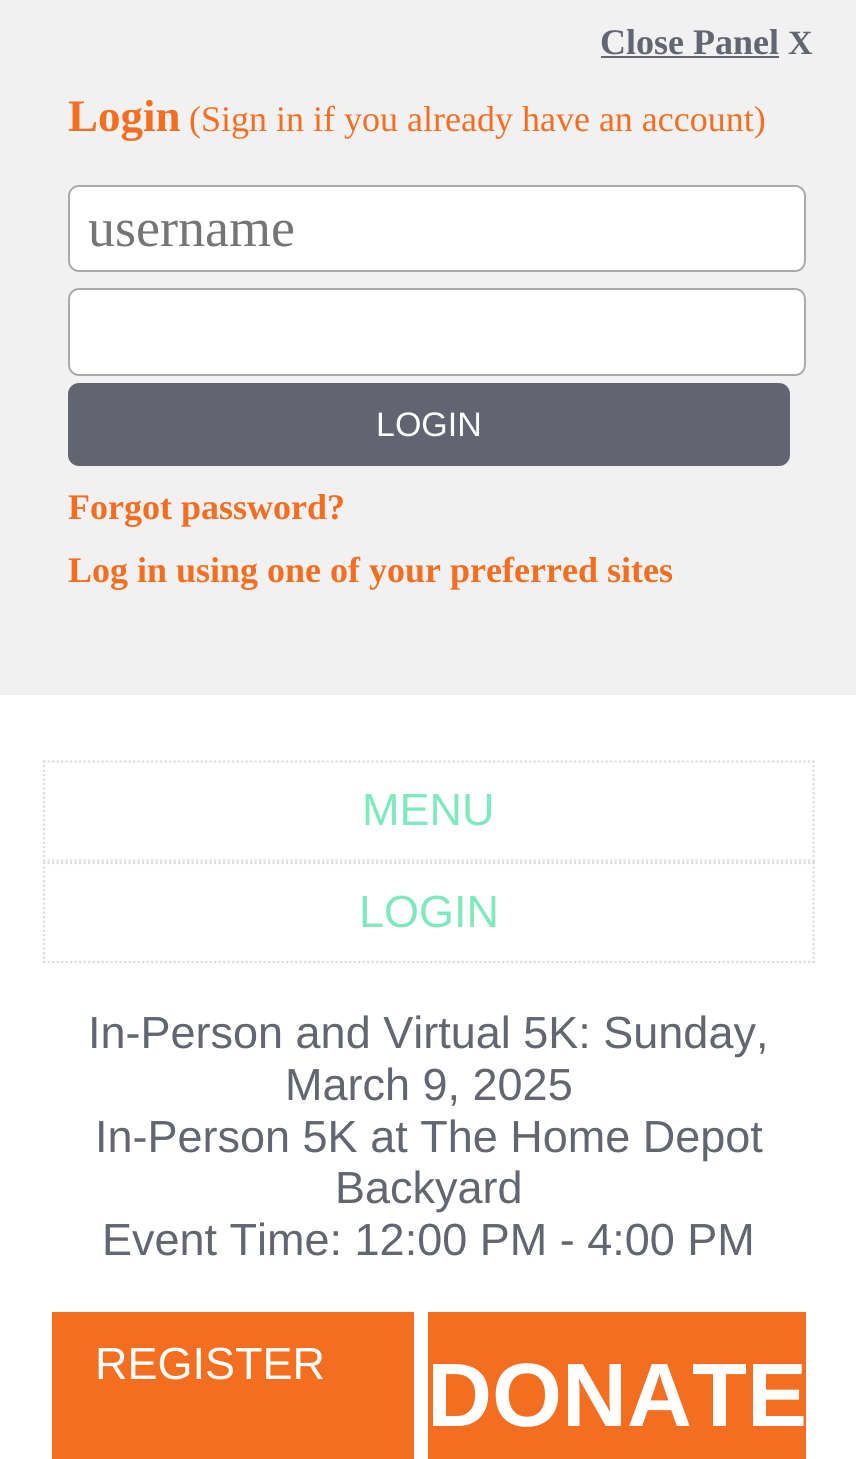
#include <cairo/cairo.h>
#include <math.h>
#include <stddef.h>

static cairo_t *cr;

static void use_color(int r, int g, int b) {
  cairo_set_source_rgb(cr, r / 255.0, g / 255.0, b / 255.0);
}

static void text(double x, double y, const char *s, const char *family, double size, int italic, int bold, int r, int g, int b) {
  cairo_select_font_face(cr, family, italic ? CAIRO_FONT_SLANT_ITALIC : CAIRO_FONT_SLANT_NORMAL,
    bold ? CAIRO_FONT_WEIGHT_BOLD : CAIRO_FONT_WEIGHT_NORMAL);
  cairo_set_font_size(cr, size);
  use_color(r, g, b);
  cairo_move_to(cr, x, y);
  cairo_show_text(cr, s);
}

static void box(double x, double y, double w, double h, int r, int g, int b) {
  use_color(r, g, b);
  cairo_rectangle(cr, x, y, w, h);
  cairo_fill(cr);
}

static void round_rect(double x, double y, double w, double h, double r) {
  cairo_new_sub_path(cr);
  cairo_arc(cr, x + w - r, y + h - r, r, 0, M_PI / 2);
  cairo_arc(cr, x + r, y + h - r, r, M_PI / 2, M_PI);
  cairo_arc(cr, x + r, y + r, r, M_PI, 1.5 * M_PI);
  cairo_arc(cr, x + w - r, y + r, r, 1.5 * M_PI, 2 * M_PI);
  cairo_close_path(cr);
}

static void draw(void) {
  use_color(255, 255, 255);
  cairo_paint(cr);
  box(0, 0, 856, 695, 241, 241, 241);
  box(601, 56, 178, 2, 99, 101, 112);
  use_color(255, 255, 255);
  round_rect(69, 186, 736, 85, 10);
  cairo_fill_preserve(cr);
  use_color(170, 170, 170);
  cairo_stroke(cr);
  use_color(255, 255, 255);
  round_rect(69, 289, 736, 86, 10);
  cairo_fill_preserve(cr);
  use_color(170, 170, 170);
  cairo_stroke(cr);
  use_color(98, 100, 113);
  round_rect(68, 383, 722, 83, 11);
  cairo_fill(cr);
  cairo_new_path(cr);
  cairo_move_to(cr, 43, 761.5);
  cairo_line_to(cr, 814.5, 761.5);
  use_color(221, 221, 221);
  cairo_set_line_width(cr, 2.2);
  cairo_set_dash(cr, (double[]){2.25, 2.25}, 2, 0);
  cairo_stroke(cr);
  cairo_new_path(cr);
  cairo_move_to(cr, 813.5, 760.5);
  cairo_line_to(cr, 813.5, 862);
  cairo_stroke(cr);
  cairo_new_path(cr);
  cairo_move_to(cr, 43, 860.5);
  cairo_line_to(cr, 814.5, 860.5);
  cairo_stroke(cr);
  cairo_new_path(cr);
  cairo_move_to(cr, 44, 760.5);
  cairo_line_to(cr, 44, 862);
  cairo_stroke(cr);
  cairo_new_path(cr);
  cairo_move_to(cr, 43, 863);
  cairo_line_to(cr, 814.5, 863);
  cairo_stroke(cr);
  cairo_new_path(cr);
  cairo_move_to(cr, 813.5, 862);
  cairo_line_to(cr, 813.5, 963);
  cairo_stroke(cr);
  cairo_new_path(cr);
  cairo_move_to(cr, 43, 962);
  cairo_line_to(cr, 814.5, 962);
  cairo_stroke(cr);
  cairo_new_path(cr);
  cairo_move_to(cr, 44, 862);
  cairo_line_to(cr, 44, 963);
  cairo_stroke(cr);
  box(52, 1312, 362, 147, 243, 110, 33);
  box(428, 1312, 378, 147, 243, 110, 33);
  text(600, 54, "Close Panel", "Liberation Serif", 36, 0, 1, 99, 101, 112);
  text(788, 54, "X", "Liberation Serif", 34, 0, 1, 99, 101, 112);
  text(68, 131, "Login", "Liberation Serif", 45, 0, 1, 244, 110, 33);
  text(189, 131, "(Sign in if you already have an account)", "Liberation Serif", 36, 0, 0, 244, 110, 33);
  text(88, 246, "username", "Liberation Serif", 54, 0, 0, 117, 117, 117);
  text(376, 436, "LOGIN", "Liberation Sans", 34, 0, 0, 255, 255, 255);
  text(68, 519, "Forgot password?", "Liberation Serif", 36, 0, 1, 244, 110, 33);
  text(68, 582, "Log in using one of your preferred sites", "Liberation Serif", 36, 0, 1, 244, 110, 33);
  text(362, 825, "MENU", "Liberation Sans", 45, 0, 0, 127, 233, 190);
  text(359, 927, "LOGIN", "Liberation Sans", 45, 0, 0, 127, 233, 190);
  text(88, 1048, "In-Person and Virtual 5K: Sunday,", "Liberation Sans", 45, 0, 0, 99, 101, 112);
  text(285, 1100, "March 9, 2025", "Liberation Sans", 45, 0, 0, 99, 101, 112);
  text(95, 1152, "In-Person 5K at The Home Depot", "Liberation Sans", 45, 0, 0, 99, 101, 112);
  text(335, 1203, "Backyard", "Liberation Sans", 45, 0, 0, 99, 101, 112);
  text(102, 1255, "Event Time: 12:00 PM - 4:00 PM", "Liberation Sans", 45, 0, 0, 99, 101, 112);
  text(95, 1379, "REGISTER", "Liberation Sans", 45, 0, 0, 255, 255, 255);
  text(427, 1426, "DONATE", "Liberation Sans", 90, 0, 1, 255, 255, 255);
}

int main(void) {
  cairo_surface_t *surface = cairo_image_surface_create(CAIRO_FORMAT_RGB24, 856, 1459);
  cr = cairo_create(surface);
  cairo_font_options_t *options = cairo_font_options_create();
  cairo_font_options_set_hint_metrics(options, CAIRO_HINT_METRICS_OFF);
  cairo_font_options_set_hint_style(options, CAIRO_HINT_STYLE_NONE);
  cairo_set_font_options(cr, options);
  cairo_set_miter_limit(cr, 4);
  draw();
  cairo_surface_write_to_png(surface, "out.png");
  cairo_font_options_destroy(options);
  cairo_destroy(cr);
  cairo_surface_destroy(surface);
  return 0;
}
